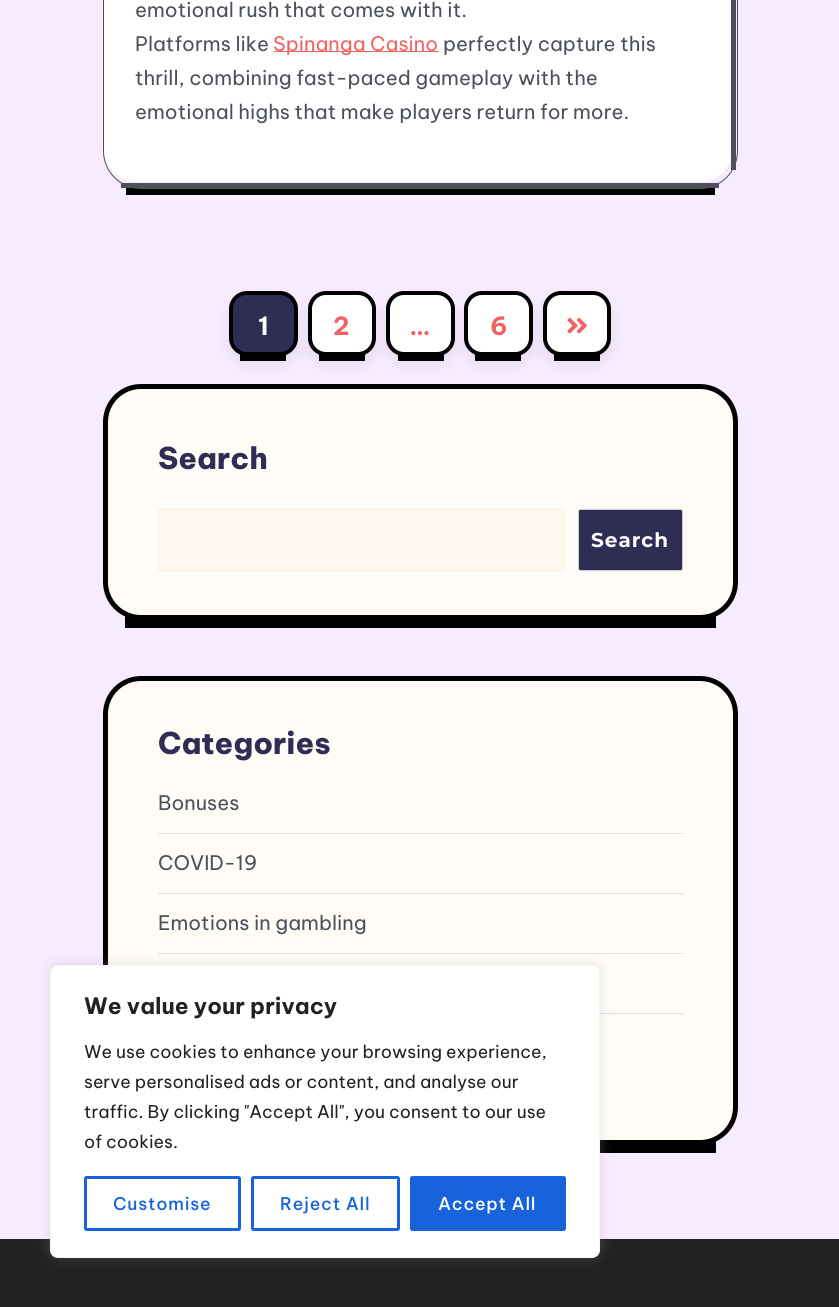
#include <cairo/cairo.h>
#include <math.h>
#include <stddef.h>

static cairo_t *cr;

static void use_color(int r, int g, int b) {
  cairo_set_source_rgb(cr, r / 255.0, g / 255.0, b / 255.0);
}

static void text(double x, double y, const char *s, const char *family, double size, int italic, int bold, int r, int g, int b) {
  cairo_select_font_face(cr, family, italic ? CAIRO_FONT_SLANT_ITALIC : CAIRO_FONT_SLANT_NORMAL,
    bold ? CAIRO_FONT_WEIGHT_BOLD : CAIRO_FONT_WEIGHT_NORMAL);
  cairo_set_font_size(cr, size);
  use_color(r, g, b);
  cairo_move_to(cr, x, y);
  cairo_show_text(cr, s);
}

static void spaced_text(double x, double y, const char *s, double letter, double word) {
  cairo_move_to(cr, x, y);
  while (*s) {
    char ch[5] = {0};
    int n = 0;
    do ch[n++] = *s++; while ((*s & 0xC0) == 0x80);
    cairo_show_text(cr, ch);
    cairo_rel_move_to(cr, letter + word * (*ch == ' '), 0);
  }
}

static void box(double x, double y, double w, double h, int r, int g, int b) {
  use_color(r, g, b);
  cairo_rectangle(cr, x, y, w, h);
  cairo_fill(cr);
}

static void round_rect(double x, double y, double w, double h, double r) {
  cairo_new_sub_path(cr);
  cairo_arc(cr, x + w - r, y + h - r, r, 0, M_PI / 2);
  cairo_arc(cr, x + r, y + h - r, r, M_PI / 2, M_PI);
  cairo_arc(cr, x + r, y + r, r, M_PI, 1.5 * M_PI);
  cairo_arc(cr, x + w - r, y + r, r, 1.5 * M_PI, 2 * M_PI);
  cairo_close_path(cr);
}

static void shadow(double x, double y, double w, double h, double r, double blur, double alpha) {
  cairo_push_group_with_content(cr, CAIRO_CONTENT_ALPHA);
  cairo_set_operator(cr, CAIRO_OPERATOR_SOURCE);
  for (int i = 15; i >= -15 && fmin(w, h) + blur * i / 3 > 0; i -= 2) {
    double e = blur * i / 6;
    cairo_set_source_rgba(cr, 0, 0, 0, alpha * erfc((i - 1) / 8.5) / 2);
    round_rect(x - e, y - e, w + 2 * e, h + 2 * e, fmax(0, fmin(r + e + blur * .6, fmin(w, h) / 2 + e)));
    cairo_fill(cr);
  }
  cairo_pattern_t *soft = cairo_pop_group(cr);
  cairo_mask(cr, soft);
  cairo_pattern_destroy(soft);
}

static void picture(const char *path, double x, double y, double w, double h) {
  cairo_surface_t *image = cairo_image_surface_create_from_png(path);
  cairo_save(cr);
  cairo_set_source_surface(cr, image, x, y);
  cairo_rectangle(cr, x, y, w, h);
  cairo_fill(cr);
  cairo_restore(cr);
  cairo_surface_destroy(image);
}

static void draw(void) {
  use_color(247, 235, 255);
  cairo_paint(cr);
  use_color(255, 255, 255);
  cairo_new_path(cr);
  cairo_move_to(cr, 140, -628);
  cairo_line_to(cr, 700, -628);
  cairo_curve_to(cr, 717, -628, 731, -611, 731, -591);
  cairo_line_to(cr, 731, 151);
  cairo_curve_to(cr, 731, 169, 717, 182, 700, 182);
  cairo_line_to(cr, 140, 182);
  cairo_curve_to(cr, 120, 182, 104, 169, 104, 151);
  cairo_line_to(cr, 104, -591);
  cairo_curve_to(cr, 104, -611, 120, -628, 140, -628);
  cairo_close_path(cr);
  cairo_fill(cr);
  box(126, 188, 589, 7, 0, 0, 0);
  round_rect(103.5, -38.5, 634, 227, 37.5);
  use_color(75, 80, 90);
  cairo_set_line_width(cr, 1);
  cairo_stroke(cr);
  box(731, 0, 5, 170, 75, 80, 90);
  box(121, 183, 598, 5, 75, 80, 90);
  box(274, 51, 165, 1, 241, 99, 99);
  box(125, 616, 591, 12, 0, 0, 0);
  use_color(255, 252, 247);
  round_rect(105.5, 386.5, 630, 231, 35.5);
  cairo_fill_preserve(cr);
  use_color(0, 0, 0);
  cairo_set_line_width(cr, 5);
  cairo_stroke(cr);
  use_color(0, 0, 0);
  shadow(233, 304, 61, 57, 14, 9.5, 0.1);
  use_color(48, 45, 85);
  round_rect(231, 293, 65, 61, 16);
  cairo_fill_preserve(cr);
  use_color(0, 0, 0);
  cairo_set_line_width(cr, 4);
  cairo_stroke(cr);
  box(240, 354, 46, 7, 0, 0, 0);
  use_color(0, 0, 0);
  shadow(311, 304, 62, 57, 14, 9.5, 0.1);
  use_color(255, 255, 255);
  round_rect(310, 293, 64, 61, 16);
  cairo_fill_preserve(cr);
  use_color(0, 0, 0);
  cairo_stroke(cr);
  box(319, 354, 46, 7, 0, 0, 0);
  use_color(0, 0, 0);
  shadow(390, 304, 61, 57, 14, 9.5, 0.1);
  use_color(255, 255, 255);
  round_rect(388, 293, 65, 61, 16);
  cairo_fill_preserve(cr);
  use_color(0, 0, 0);
  cairo_stroke(cr);
  box(398, 354, 46, 7, 0, 0, 0);
  use_color(0, 0, 0);
  shadow(468, 304, 61, 57, 14, 9.5, 0.1);
  use_color(255, 255, 255);
  round_rect(466, 293, 65, 61, 16);
  cairo_fill_preserve(cr);
  use_color(0, 0, 0);
  cairo_stroke(cr);
  box(475, 354, 46, 7, 0, 0, 0);
  use_color(0, 0, 0);
  shadow(546, 304, 62, 57, 14, 9.5, 0.1);
  use_color(255, 255, 255);
  round_rect(545, 293, 64, 61, 16);
  cairo_fill_preserve(cr);
  use_color(0, 0, 0);
  cairo_stroke(cr);
  picture("img_01.png", 567, 317, 20, 17);
  box(554, 354, 46, 7, 0, 0, 0);
  use_color(255, 247, 237);
  cairo_rectangle(cr, 158.5, 509.5, 406, 61);
  cairo_fill_preserve(cr);
  use_color(255, 239, 219);
  cairo_set_line_width(cr, 1);
  cairo_stroke(cr);
  use_color(48, 45, 85);
  round_rect(578.5, 509.5, 104, 61, 2);
  cairo_fill_preserve(cr);
  use_color(204, 204, 204);
  cairo_stroke(cr);
  box(600, 1141, 116, 12, 0, 0, 0);
  use_color(255, 252, 247);
  round_rect(105.5, 678.5, 630, 464, 35.5);
  cairo_fill_preserve(cr);
  use_color(0, 0, 0);
  cairo_set_line_width(cr, 5);
  cairo_stroke(cr);
  box(158, 833, 525, 1, 222, 221, 226);
  box(158, 893, 525, 1, 222, 221, 226);
  box(158, 953, 525, 1, 222, 221, 226);
  box(600, 1013, 83, 1, 222, 221, 226);
  box(0, 1239, 839, 68, 34, 34, 34);
  use_color(172, 171, 171);
  shadow(50, 964, 550, 292, 8, 6, 0.3);
  use_color(255, 255, 255);
  round_rect(50.5, 965.5, 549, 292, 7.5);
  cairo_fill_preserve(cr);
  use_color(244, 244, 244);
  cairo_set_line_width(cr, 1);
  cairo_stroke(cr);
  round_rect(85.5, 1177.5, 154, 52, 1);
  use_color(24, 99, 220);
  cairo_set_line_width(cr, 3);
  cairo_stroke(cr);
  round_rect(252.5, 1177.5, 146, 52, 1);
  cairo_stroke(cr);
  round_rect(411.5, 1177.5, 153, 52, 1);
  cairo_fill_preserve(cr);
  cairo_stroke(cr);
  text(135, 17, "emotional rush that comes with it.", "Be Vietnam Pro", 20, 0, 0, 75, 80, 90);
  text(135, 51, "Platforms like", "Be Vietnam Pro", 20, 0, 0, 75, 80, 90);
  text(273, 51, "Spinanga Casino", "Be Vietnam Pro", 20, 0, 0, 241, 99, 99);
  text(443, 51, "perfectly capture this", "Be Vietnam Pro", 20, 0, 0, 75, 80, 90);
  text(135, 85, "thrill, combining fast-paced gameplay with the", "Be Vietnam Pro", 20, 0, 0, 75, 80, 90);
  text(135, 119, "emotional highs that make players return for more.", "Be Vietnam Pro", 20, 0, 0, 75, 80, 90);
  text(258, 335, "1", "Be Vietnam Pro", 25, 0, 1, 255, 255, 255);
  text(333, 335, "2", "Be Vietnam Pro", 25, 0, 1, 241, 99, 99);
  text(409, 335, "…", "Be Vietnam Pro", 25, 0, 1, 241, 99, 99);
  text(490, 335, "6", "Be Vietnam Pro", 25, 0, 1, 241, 99, 99);
  text(158, 469, "Search", "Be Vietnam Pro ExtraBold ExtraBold", 30, 0, 0, 48, 45, 85);
  cairo_select_font_face(cr, "Montserrat", CAIRO_FONT_SLANT_NORMAL, CAIRO_FONT_WEIGHT_BOLD);
  cairo_set_font_size(cr, 20);
  use_color(255, 255, 255);
  spaced_text(591, 547, "Search", 1, 0);
  text(158, 754, "Categories", "Be Vietnam Pro ExtraBold ExtraBold", 30, 0, 0, 48, 45, 85);
  text(158, 810, "Bonuses", "Be Vietnam Pro", 20, 0, 0, 75, 80, 90);
  text(158, 870, "COVID-19", "Be Vietnam Pro", 20, 0, 0, 75, 80, 90);
  text(158, 930, "Emotions in gambling", "Be Vietnam Pro", 20, 0, 0, 75, 80, 90);
  text(84, 1014, "We value your privacy", "Be Vietnam Pro", 22.5, 0, 1, 33, 33, 33);
  text(84, 1058, "We use cookies to enhance your browsing experience,", "Be Vietnam Pro", 17.5, 0, 0, 33, 33, 33);
  text(84, 1088, "serve personalised ads or content, and analyse our", "Be Vietnam Pro", 17.5, 0, 0, 33, 33, 33);
  text(84, 1118, "traffic. By clicking \"Accept All\", you consent to our use", "Be Vietnam Pro", 17.5, 0, 0, 33, 33, 33);
  text(84, 1148, "of cookies.", "Be Vietnam Pro", 17.5, 0, 0, 33, 33, 33);
  cairo_select_font_face(cr, "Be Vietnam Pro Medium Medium", CAIRO_FONT_SLANT_NORMAL, CAIRO_FONT_WEIGHT_NORMAL);
  use_color(24, 99, 220);
  spaced_text(113, 1210, "Customise", 0.75, 0);
  spaced_text(280, 1210, "Reject All", 0.75, 0);
  use_color(255, 255, 255);
  spaced_text(438, 1210, "Accept All", 0.75, 0);
}

int main(void) {
  cairo_surface_t *surface = cairo_image_surface_create(CAIRO_FORMAT_RGB24, 839, 1307);
  cr = cairo_create(surface);
  cairo_font_options_t *options = cairo_font_options_create();
  cairo_font_options_set_hint_metrics(options, CAIRO_HINT_METRICS_OFF);
  cairo_font_options_set_hint_style(options, CAIRO_HINT_STYLE_NONE);
  cairo_set_font_options(cr, options);
  cairo_set_miter_limit(cr, 4);
  draw();
  cairo_surface_write_to_png(surface, "out.png");
  cairo_font_options_destroy(options);
  cairo_destroy(cr);
  cairo_surface_destroy(surface);
  return 0;
}
